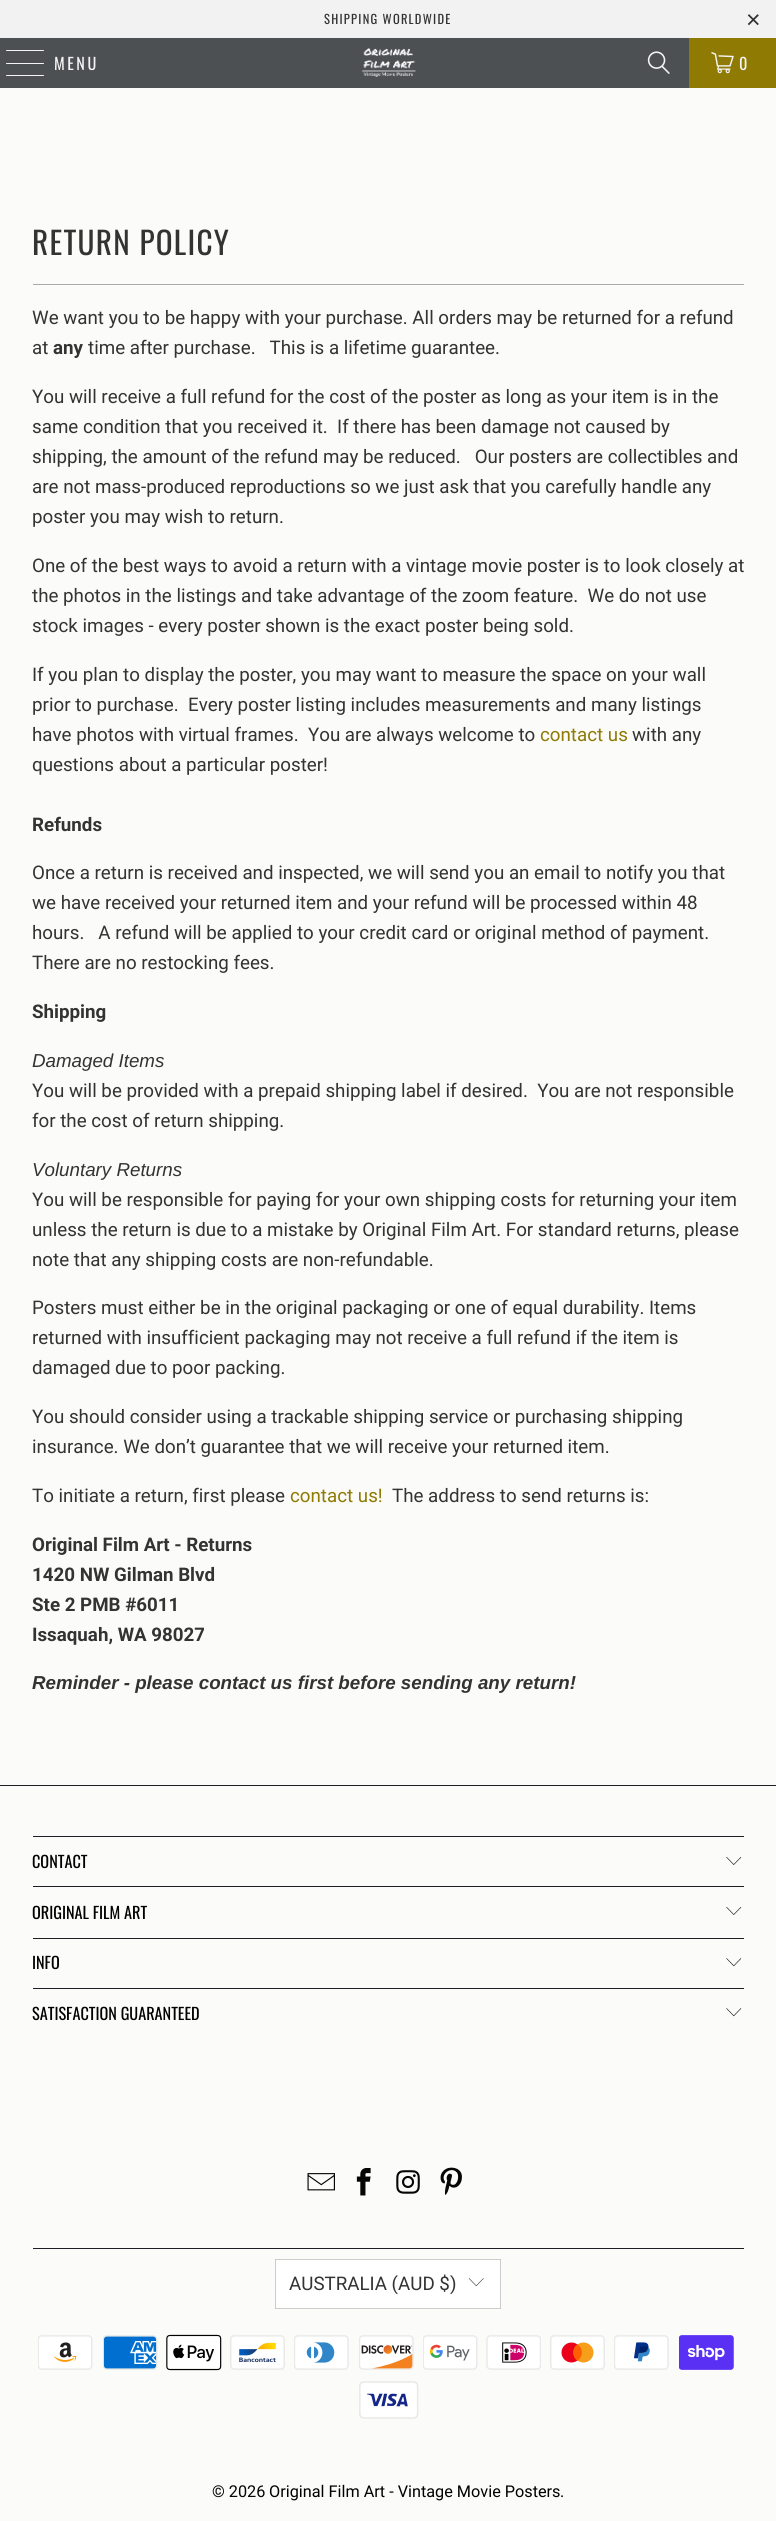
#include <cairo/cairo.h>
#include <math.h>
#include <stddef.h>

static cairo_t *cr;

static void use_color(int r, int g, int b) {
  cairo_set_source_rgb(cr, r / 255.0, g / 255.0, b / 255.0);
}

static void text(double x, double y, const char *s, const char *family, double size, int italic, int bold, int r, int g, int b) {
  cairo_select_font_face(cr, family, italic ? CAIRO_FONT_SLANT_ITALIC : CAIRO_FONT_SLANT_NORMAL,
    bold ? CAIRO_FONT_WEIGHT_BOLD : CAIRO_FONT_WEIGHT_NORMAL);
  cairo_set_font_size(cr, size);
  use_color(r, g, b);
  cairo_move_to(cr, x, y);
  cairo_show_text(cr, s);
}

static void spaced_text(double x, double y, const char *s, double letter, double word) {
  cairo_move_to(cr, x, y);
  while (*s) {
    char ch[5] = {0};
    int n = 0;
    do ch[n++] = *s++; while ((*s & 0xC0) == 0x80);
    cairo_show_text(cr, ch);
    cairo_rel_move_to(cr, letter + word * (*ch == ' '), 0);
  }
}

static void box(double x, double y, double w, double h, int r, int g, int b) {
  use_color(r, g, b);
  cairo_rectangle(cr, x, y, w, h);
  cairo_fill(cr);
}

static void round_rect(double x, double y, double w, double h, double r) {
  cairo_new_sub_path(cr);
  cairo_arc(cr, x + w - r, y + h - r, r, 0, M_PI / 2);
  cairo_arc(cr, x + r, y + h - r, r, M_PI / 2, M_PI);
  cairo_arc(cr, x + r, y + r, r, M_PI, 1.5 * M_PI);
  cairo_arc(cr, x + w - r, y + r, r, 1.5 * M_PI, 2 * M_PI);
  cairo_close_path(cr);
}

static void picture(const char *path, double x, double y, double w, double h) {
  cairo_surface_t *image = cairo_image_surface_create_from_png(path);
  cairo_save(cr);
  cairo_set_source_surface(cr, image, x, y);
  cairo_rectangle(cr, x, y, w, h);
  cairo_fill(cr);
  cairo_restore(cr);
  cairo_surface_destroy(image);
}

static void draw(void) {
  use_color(251, 251, 249);
  cairo_paint(cr);
  box(0, 0, 776, 38, 242, 242, 242);
  box(0, 38, 689, 50, 77, 80, 83);
  use_color(244, 244, 244);
  round_rect(6, 50, 38, 1, 0.5);
  cairo_fill(cr);
  round_rect(6, 63, 38, 1, 0.5);
  cairo_fill(cr);
  round_rect(6, 75, 38, 1, 0.5);
  cairo_fill(cr);
  picture("img_01.png", 361, 48, 55, 29);
  picture("img_02.png", 647, 51, 23, 23);
  box(689, 38, 87, 50, 143, 122, 4);
  picture("img_03.png", 711, 52, 23, 22);
  box(33, 284, 711, 1, 170, 170, 170);
  box(0, 1785, 776, 1, 27, 31, 35);
  box(33, 1836, 711, 1, 27, 31, 35);
  picture("img_04.png", 726, 1857, 16, 8);
  box(33, 1886, 711, 1, 27, 31, 35);
  picture("img_04.png", 726, 1907, 16, 8);
  box(33, 1938, 711, 1, 27, 31, 35);
  picture("img_05.png", 726, 1958, 16, 9);
  box(33, 1988, 711, 1, 27, 31, 35);
  picture("img_05.png", 726, 2008, 16, 9);
  picture("img_06.png", 307, 2173, 28, 18);
  picture("img_07.png", 356, 2168, 15, 28);
  picture("img_08.png", 396, 2170, 24, 24);
  picture("img_09.png", 440, 2167, 22, 28);
  box(33, 2248, 711, 1, 27, 31, 35);
  use_color(255, 255, 255);
  cairo_rectangle(cr, 275.5, 2259.5, 225, 49);
  cairo_fill_preserve(cr);
  use_color(204, 204, 204);
  cairo_set_line_width(cr, 1);
  cairo_stroke(cr);
  picture("img_10.png", 468, 2278, 16, 9);
  picture("img_11.png", 38, 2335, 55, 35);
  picture("img_12.png", 103, 2335, 55, 35);
  picture("img_13.png", 166, 2334, 56, 37);
  picture("img_14.png", 230, 2335, 55, 35);
  picture("img_15.png", 294, 2335, 55, 35);
  picture("img_16.png", 359, 2335, 55, 35);
  picture("img_17.png", 423, 2335, 55, 35);
  picture("img_18.png", 486, 2335, 55, 35);
  picture("img_19.png", 550, 2335, 55, 35);
  picture("img_20.png", 614, 2335, 55, 35);
  picture("img_21.png", 679, 2335, 55, 35);
  picture("img_22.png", 359, 2381, 60, 38);
  cairo_select_font_face(cr, "Oswald", CAIRO_FONT_SLANT_NORMAL, CAIRO_FONT_WEIGHT_NORMAL);
  cairo_set_font_size(cr, 12.5);
  use_color(51, 51, 51);
  spaced_text(324, 24, "SHIPPING WORLDWIDE", 1.25, 0);
  cairo_select_font_face(cr, "Liberation Sans", CAIRO_FONT_SLANT_NORMAL, CAIRO_FONT_WEIGHT_NORMAL);
  cairo_set_font_size(cr, 25);
  spaced_text(746, 28, "×", 1.25, 0);
  cairo_select_font_face(cr, "Oswald", CAIRO_FONT_SLANT_NORMAL, CAIRO_FONT_WEIGHT_NORMAL);
  cairo_set_font_size(cr, 16.25);
  use_color(244, 244, 244);
  spaced_text(54, 70, "MENU", 2.5, 0);
  spaced_text(739, 70, "0", 2.5, 0);
  cairo_set_font_size(cr, 31.25);
  use_color(51, 51, 51);
  spaced_text(32, 255, "RETURN POLICY", 1.25, 0);
  text(32, 324, "We want you to be happy with your purchase. All orders may be returned for a refund", "Roboto", 18.75, 0, 0, 51, 51, 51);
  text(32, 354, "at", "Roboto", 18.75, 0, 0, 51, 51, 51);
  text(53, 354, "any", "Roboto", 18.75, 0, 1, 51, 51, 51);
  text(88, 354, "time after purchase.   This is a lifetime guarantee.", "Roboto", 18.75, 0, 0, 51, 51, 51);
  text(32, 403, "You will receive a full refund for the cost of the poster as long as your item is in the", "Roboto", 18.75, 0, 0, 51, 51, 51);
  text(32, 433, "same condition that you received it.  If there has been damage not caused by", "Roboto", 18.75, 0, 0, 51, 51, 51);
  text(32, 463, "shipping, the amount of the refund may be reduced.   Our posters are collectibles and", "Roboto", 18.75, 0, 0, 51, 51, 51);
  text(32, 493, "are not mass-produced reproductions so we just ask that you carefully handle any", "Roboto", 18.75, 0, 0, 51, 51, 51);
  text(32, 523, "poster you may wish to return.", "Roboto", 18.75, 0, 0, 51, 51, 51);
  text(32, 572, "One of the best ways to avoid a return with a vintage movie poster is to look closely at", "Roboto", 18.75, 0, 0, 51, 51, 51);
  text(32, 602, "the photos in the listings and take advantage of the zoom feature.  We do not use", "Roboto", 18.75, 0, 0, 51, 51, 51);
  text(32, 632, "stock images - every poster shown is the exact poster being sold.", "Roboto", 18.75, 0, 0, 51, 51, 51);
  text(32, 681, "If you plan to display the poster, you may want to measure the space on your wall", "Roboto", 18.75, 0, 0, 51, 51, 51);
  text(32, 711, "prior to purchase.  Every poster listing includes measurements and many listings", "Roboto", 18.75, 0, 0, 51, 51, 51);
  text(32, 741, "have photos with virtual frames.  You are always welcome to", "Roboto", 18.75, 0, 0, 51, 51, 51);
  text(540, 741, "contact us", "Roboto", 18.75, 0, 0, 143, 122, 4);
  text(632, 741, "with any", "Roboto", 18.75, 0, 0, 51, 51, 51);
  text(32, 771, "questions about a particular poster!", "Roboto", 18.75, 0, 0, 51, 51, 51);
  text(32, 831, "Refunds", "Roboto", 18.75, 0, 1, 51, 51, 51);
  text(32, 879, "Once a return is received and inspected, we will send you an email to notify you that", "Roboto", 18.75, 0, 0, 51, 51, 51);
  text(32, 909, "we have received your returned item and your refund will be processed within 48", "Roboto", 18.75, 0, 0, 51, 51, 51);
  text(32, 939, "hours.   A refund will be applied to your credit card or original method of payment.", "Roboto", 18.75, 0, 0, 51, 51, 51);
  text(32, 969, "There are no restocking fees.", "Roboto", 18.75, 0, 0, 51, 51, 51);
  text(32, 1018, "Shipping", "Roboto", 18.75, 0, 1, 51, 51, 51);
  text(32, 1067, "Damaged Items", "Liberation Sans", 18.75, 1, 0, 51, 51, 51);
  text(32, 1097, "You will be provided with a prepaid shipping label if desired.  You are not responsible", "Roboto", 18.75, 0, 0, 51, 51, 51);
  text(32, 1127, "for the cost of return shipping.", "Roboto", 18.75, 0, 0, 51, 51, 51);
  text(32, 1176, "Voluntary Returns", "Liberation Sans", 18.75, 1, 0, 51, 51, 51);
  text(32, 1206, "You will be responsible for paying for your own shipping costs for returning your item", "Roboto", 18.75, 0, 0, 51, 51, 51);
  text(32, 1236, "unless the return is due to a mistake by Original Film Art. For standard returns, please", "Roboto", 18.75, 0, 0, 51, 51, 51);
  text(32, 1266, "note that any shipping costs are non-refundable.", "Roboto", 18.75, 0, 0, 51, 51, 51);
  text(32, 1314, "Posters must either be in the original packaging or one of equal durability. Items", "Roboto", 18.75, 0, 0, 51, 51, 51);
  text(32, 1344, "returned with insufficient packaging may not receive a full refund if the item is", "Roboto", 18.75, 0, 0, 51, 51, 51);
  text(32, 1374, "damaged due to poor packing.", "Roboto", 18.75, 0, 0, 51, 51, 51);
  text(32, 1423, "You should consider using a trackable shipping service or purchasing shipping", "Roboto", 18.75, 0, 0, 51, 51, 51);
  text(32, 1453, "insurance. We don’t guarantee that we will receive your returned item.", "Roboto", 18.75, 0, 0, 51, 51, 51);
  text(32, 1502, "To initiate a return, first please", "Roboto", 18.75, 0, 0, 51, 51, 51);
  text(290, 1502, "contact us!", "Roboto", 18.75, 0, 0, 143, 122, 4);
  text(392, 1502, "The address to send returns is:", "Roboto", 18.75, 0, 0, 51, 51, 51);
  text(32, 1551, "Original Film Art - Returns", "Roboto", 18.75, 0, 1, 51, 51, 51);
  text(32, 1581, "1420 NW Gilman Blvd", "Roboto", 18.75, 0, 1, 51, 51, 51);
  text(32, 1611, "Ste 2 PMB #6011", "Roboto", 18.75, 0, 1, 51, 51, 51);
  text(32, 1641, "Issaquah, WA 98027", "Roboto", 18.75, 0, 1, 51, 51, 51);
  text(32, 1689, "Reminder - please contact us first before sending any return!", "Liberation Sans", 18.75, 1, 1, 51, 51, 51);
  text(32, 1868, "CONTACT", "Oswald", 16.25, 0, 0, 0, 0, 0);
  text(32, 1919, "ORIGINAL FILM ART", "Oswald", 16.25, 0, 0, 0, 0, 0);
  text(32, 1969, "INFO", "Oswald", 16.25, 0, 0, 0, 0, 0);
  text(32, 2020, "SATISFACTION GUARANTEED", "Oswald", 16.25, 0, 0, 0, 0, 0);
  text(289, 2290, "AUSTRALIA (AUD $)", "Roboto", 18.75, 0, 0, 51, 51, 51);
  text(212, 2497, "© 2026", "Roboto", 16.25, 0, 0, 6, 6, 6);
  text(269, 2497, "Original Film Art - Vintage Movie Posters", "Roboto", 16.25, 0, 0, 0, 0, 0);
  text(560, 2497, ".", "Roboto", 16.25, 0, 0, 6, 6, 6);
}

int main(void) {
  cairo_surface_t *surface = cairo_image_surface_create(CAIRO_FORMAT_RGB24, 776, 2521);
  cr = cairo_create(surface);
  cairo_font_options_t *options = cairo_font_options_create();
  cairo_font_options_set_hint_metrics(options, CAIRO_HINT_METRICS_OFF);
  cairo_font_options_set_hint_style(options, CAIRO_HINT_STYLE_NONE);
  cairo_set_font_options(cr, options);
  cairo_set_miter_limit(cr, 4);
  draw();
  cairo_surface_write_to_png(surface, "out.png");
  cairo_font_options_destroy(options);
  cairo_destroy(cr);
  cairo_surface_destroy(surface);
  return 0;
}
